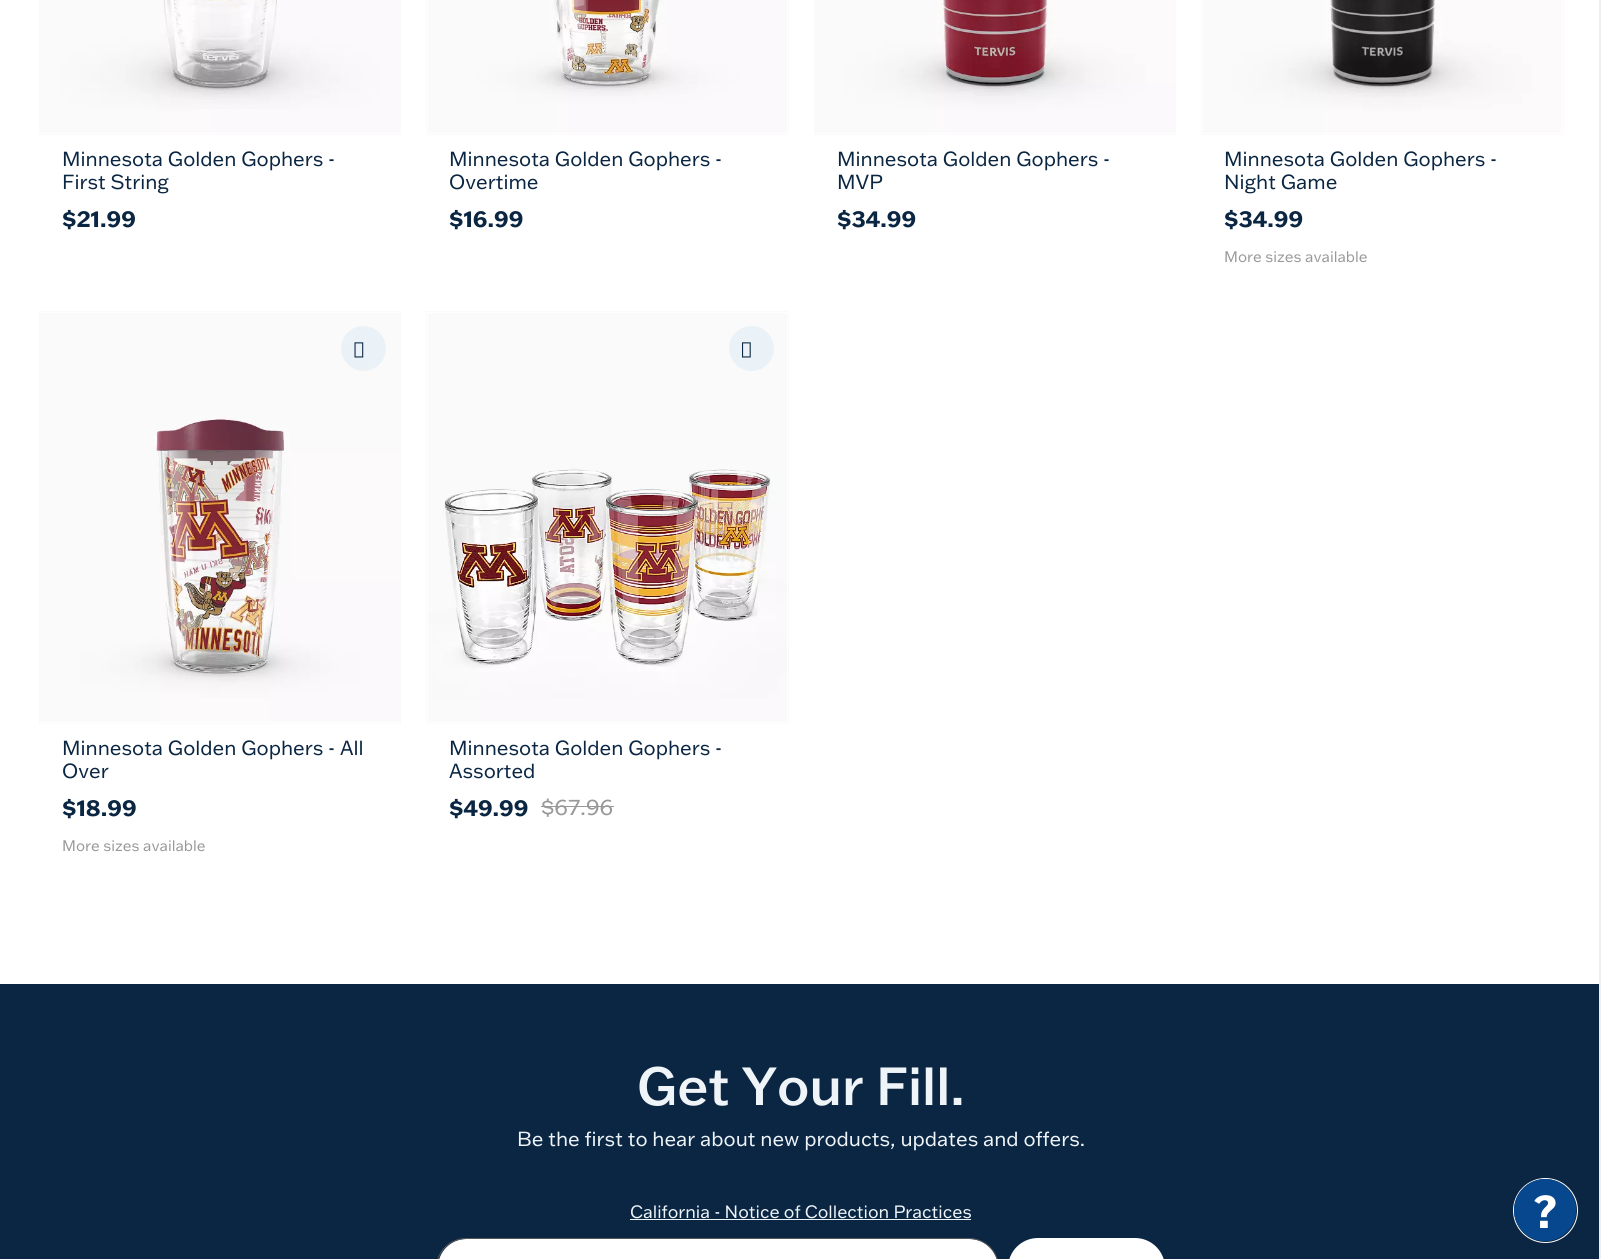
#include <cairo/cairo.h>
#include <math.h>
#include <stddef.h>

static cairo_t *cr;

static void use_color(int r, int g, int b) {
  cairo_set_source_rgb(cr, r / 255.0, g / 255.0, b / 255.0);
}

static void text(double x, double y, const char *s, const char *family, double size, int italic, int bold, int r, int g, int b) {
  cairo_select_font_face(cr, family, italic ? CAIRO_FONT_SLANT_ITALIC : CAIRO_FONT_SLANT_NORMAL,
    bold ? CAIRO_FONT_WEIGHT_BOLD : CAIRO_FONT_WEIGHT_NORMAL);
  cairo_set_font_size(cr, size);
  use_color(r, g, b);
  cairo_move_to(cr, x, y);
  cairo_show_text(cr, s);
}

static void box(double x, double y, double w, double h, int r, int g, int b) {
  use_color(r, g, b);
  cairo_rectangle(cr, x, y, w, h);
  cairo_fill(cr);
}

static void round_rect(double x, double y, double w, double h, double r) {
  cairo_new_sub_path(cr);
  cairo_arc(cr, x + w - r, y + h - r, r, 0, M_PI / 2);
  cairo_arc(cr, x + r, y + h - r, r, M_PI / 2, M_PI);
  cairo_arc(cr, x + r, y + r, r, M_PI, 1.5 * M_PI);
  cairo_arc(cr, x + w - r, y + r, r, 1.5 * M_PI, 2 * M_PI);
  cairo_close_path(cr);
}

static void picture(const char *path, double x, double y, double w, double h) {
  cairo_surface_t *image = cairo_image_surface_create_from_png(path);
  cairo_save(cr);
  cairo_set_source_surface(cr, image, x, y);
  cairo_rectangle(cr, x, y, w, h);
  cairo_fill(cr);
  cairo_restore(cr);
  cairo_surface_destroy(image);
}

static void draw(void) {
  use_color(255, 255, 255);
  cairo_paint(cr);
  cairo_rectangle(cr, 39.5, -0.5, 361, 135);
  use_color(250, 250, 250);
  cairo_set_line_width(cr, 1);
  cairo_stroke(cr);
  picture("img_01.png", 40, 0, 360, 133);
  cairo_rectangle(cr, 426.5, -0.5, 362, 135);
  cairo_stroke(cr);
  picture("img_02.png", 428, 0, 359, 133);
  cairo_rectangle(cr, 814.5, -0.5, 361, 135);
  cairo_stroke(cr);
  picture("img_03.png", 815, 0, 360, 133);
  cairo_rectangle(cr, 1201.5, -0.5, 362, 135);
  cairo_stroke(cr);
  picture("img_04.png", 1203, 0, 359, 133);
  cairo_rectangle(cr, 39.5, 311.5, 361, 412);
  cairo_stroke(cr);
  picture("img_05.png", 40, 313, 360, 409);
  use_color(235, 242, 247);
  cairo_arc(cr, 363.5, 348.5, 22.5, 0, 2 * M_PI);
  cairo_fill(cr);
  picture("img_06.png", 354, 342, 10, 16);
  cairo_rectangle(cr, 426.5, 311.5, 362, 412);
  use_color(250, 250, 250);
  cairo_stroke(cr);
  picture("img_07.png", 428, 313, 359, 409);
  use_color(235, 242, 247);
  cairo_arc(cr, 751.5, 348.5, 22.5, 0, 2 * M_PI);
  cairo_fill(cr);
  picture("img_08.png", 742, 342, 9, 16);
  box(541, 806, 73, 1, 153, 153, 153);
  box(1599, 0, 2, 1259, 238, 238, 238);
  box(0, 984, 1599, 275, 10, 38, 66);
  box(630, 1219, 341, 1, 238, 244, 248);
  use_color(255, 255, 255);
  round_rect(438, 1239, 560, 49, 28.5);
  cairo_fill(cr);
  round_rect(436.5, 1238.5, 562, 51, 29.5);
  use_color(88, 88, 91);
  cairo_stroke(cr);
  use_color(255, 255, 255);
  round_rect(1008, 1238, 157, 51, 30);
  cairo_fill(cr);
  cairo_arc(cr, 1545, 1210, 30.5, 0, 2 * M_PI);
  use_color(6, 71, 142);
  cairo_stroke(cr);
  cairo_arc(cr, 1545.5, 1210.5, 32, 0, 2 * M_PI);
  use_color(255, 255, 255);
  cairo_stroke(cr);
  use_color(6, 71, 142);
  cairo_arc(cr, 1545, 1210, 29, 0, 2 * M_PI);
  cairo_fill_preserve(cr);
  cairo_set_line_width(cr, 4);
  cairo_stroke(cr);
  text(62, 166, "Minnesota Golden Gophers -", "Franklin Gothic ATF", 20, 0, 0, 10, 38, 66);
  text(62, 189, "First String", "Franklin Gothic ATF", 20, 0, 0, 10, 38, 66);
  text(62, 227, "$21.99", "Franklin Gothic ATF", 22.5, 0, 1, 10, 38, 66);
  text(449, 166, "Minnesota Golden Gophers -", "Franklin Gothic ATF", 20, 0, 0, 10, 38, 66);
  text(449, 189, "Overtime", "Franklin Gothic ATF", 20, 0, 0, 10, 38, 66);
  text(449, 227, "$16.99", "Franklin Gothic ATF", 22.5, 0, 1, 10, 38, 66);
  text(837, 166, "Minnesota Golden Gophers -", "Franklin Gothic ATF", 20, 0, 0, 10, 38, 66);
  text(837, 189, "MVP", "Franklin Gothic ATF", 20, 0, 0, 10, 38, 66);
  text(837, 227, "$34.99", "Franklin Gothic ATF", 22.5, 0, 1, 10, 38, 66);
  text(1224, 166, "Minnesota Golden Gophers -", "Franklin Gothic ATF", 20, 0, 0, 10, 38, 66);
  text(1224, 189, "Night Game", "Franklin Gothic ATF", 20, 0, 0, 10, 38, 66);
  text(1224, 227, "$34.99", "Franklin Gothic ATF", 22.5, 0, 1, 10, 38, 66);
  text(1224, 262, "More sizes available", "Franklin Gothic ATF", 15, 0, 0, 153, 153, 153);
  text(62, 755, "Minnesota Golden Gophers - All", "Franklin Gothic ATF", 20, 0, 0, 10, 38, 66);
  text(62, 778, "Over", "Franklin Gothic ATF", 20, 0, 0, 10, 38, 66);
  text(62, 816, "$18.99", "Franklin Gothic ATF", 22.5, 0, 1, 10, 38, 66);
  text(62, 851, "More sizes available", "Franklin Gothic ATF", 15, 0, 0, 153, 153, 153);
  text(449, 755, "Minnesota Golden Gophers -", "Franklin Gothic ATF", 20, 0, 0, 10, 38, 66);
  text(449, 778, "Assorted", "Franklin Gothic ATF", 20, 0, 0, 10, 38, 66);
  text(449, 816, "$49.99", "Franklin Gothic ATF", 22.5, 0, 1, 10, 38, 66);
  text(541, 815, "$67.96", "Franklin Gothic ATF", 22.5, 0, 0, 153, 153, 153);
  text(637, 1105, "Get Your Fill.", "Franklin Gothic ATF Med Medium", 52.5, 0, 0, 238, 244, 248);
  text(517, 1146, "Be the first to hear about new products, updates and offers.", "Franklin Gothic ATF", 20, 0, 0, 238, 244, 248);
  text(630, 1218, "California - Notice of Collection Practices", "Franklin Gothic ATF", 17.5, 0, 0, 238, 244, 248);
  text(1533, 1228, "?", "Franklin Gothic ATF", 45, 0, 1, 255, 255, 255);
}

int main(void) {
  cairo_surface_t *surface = cairo_image_surface_create(CAIRO_FORMAT_RGB24, 1601, 1259);
  cr = cairo_create(surface);
  cairo_font_options_t *options = cairo_font_options_create();
  cairo_font_options_set_hint_metrics(options, CAIRO_HINT_METRICS_OFF);
  cairo_font_options_set_hint_style(options, CAIRO_HINT_STYLE_NONE);
  cairo_set_font_options(cr, options);
  cairo_set_miter_limit(cr, 4);
  draw();
  cairo_surface_write_to_png(surface, "out.png");
  cairo_font_options_destroy(options);
  cairo_destroy(cr);
  cairo_surface_destroy(surface);
  return 0;
}
